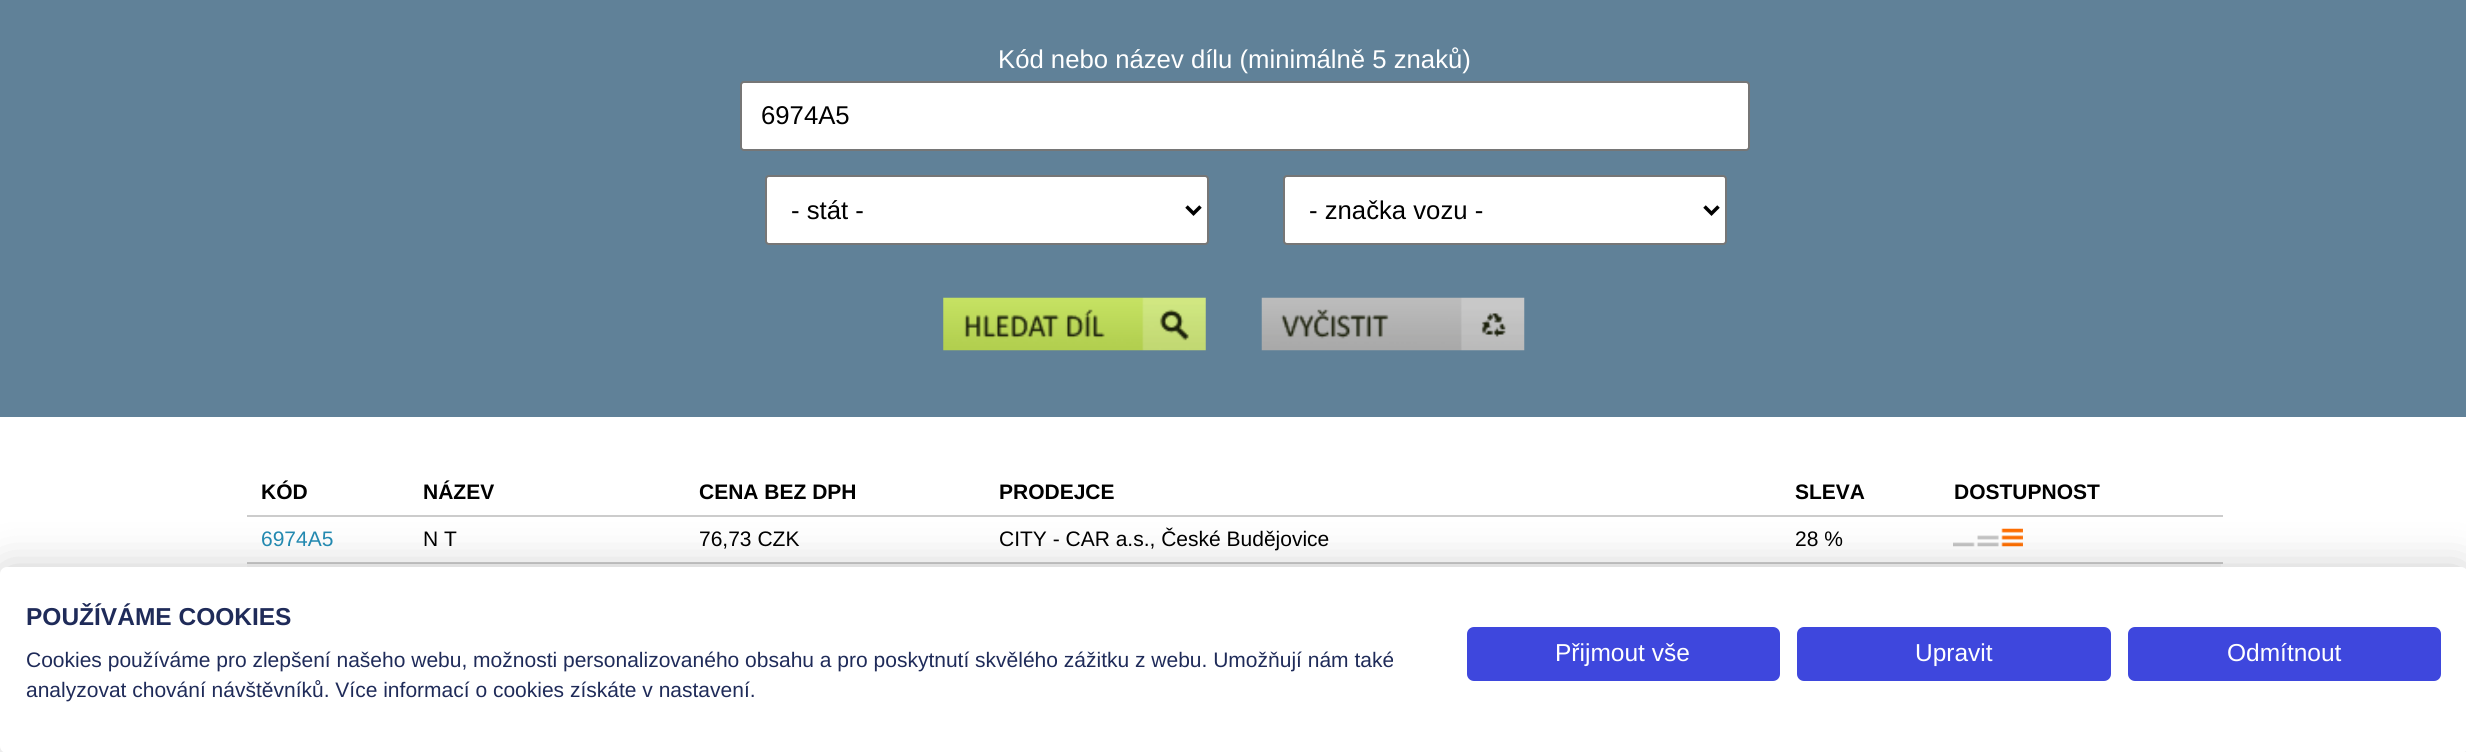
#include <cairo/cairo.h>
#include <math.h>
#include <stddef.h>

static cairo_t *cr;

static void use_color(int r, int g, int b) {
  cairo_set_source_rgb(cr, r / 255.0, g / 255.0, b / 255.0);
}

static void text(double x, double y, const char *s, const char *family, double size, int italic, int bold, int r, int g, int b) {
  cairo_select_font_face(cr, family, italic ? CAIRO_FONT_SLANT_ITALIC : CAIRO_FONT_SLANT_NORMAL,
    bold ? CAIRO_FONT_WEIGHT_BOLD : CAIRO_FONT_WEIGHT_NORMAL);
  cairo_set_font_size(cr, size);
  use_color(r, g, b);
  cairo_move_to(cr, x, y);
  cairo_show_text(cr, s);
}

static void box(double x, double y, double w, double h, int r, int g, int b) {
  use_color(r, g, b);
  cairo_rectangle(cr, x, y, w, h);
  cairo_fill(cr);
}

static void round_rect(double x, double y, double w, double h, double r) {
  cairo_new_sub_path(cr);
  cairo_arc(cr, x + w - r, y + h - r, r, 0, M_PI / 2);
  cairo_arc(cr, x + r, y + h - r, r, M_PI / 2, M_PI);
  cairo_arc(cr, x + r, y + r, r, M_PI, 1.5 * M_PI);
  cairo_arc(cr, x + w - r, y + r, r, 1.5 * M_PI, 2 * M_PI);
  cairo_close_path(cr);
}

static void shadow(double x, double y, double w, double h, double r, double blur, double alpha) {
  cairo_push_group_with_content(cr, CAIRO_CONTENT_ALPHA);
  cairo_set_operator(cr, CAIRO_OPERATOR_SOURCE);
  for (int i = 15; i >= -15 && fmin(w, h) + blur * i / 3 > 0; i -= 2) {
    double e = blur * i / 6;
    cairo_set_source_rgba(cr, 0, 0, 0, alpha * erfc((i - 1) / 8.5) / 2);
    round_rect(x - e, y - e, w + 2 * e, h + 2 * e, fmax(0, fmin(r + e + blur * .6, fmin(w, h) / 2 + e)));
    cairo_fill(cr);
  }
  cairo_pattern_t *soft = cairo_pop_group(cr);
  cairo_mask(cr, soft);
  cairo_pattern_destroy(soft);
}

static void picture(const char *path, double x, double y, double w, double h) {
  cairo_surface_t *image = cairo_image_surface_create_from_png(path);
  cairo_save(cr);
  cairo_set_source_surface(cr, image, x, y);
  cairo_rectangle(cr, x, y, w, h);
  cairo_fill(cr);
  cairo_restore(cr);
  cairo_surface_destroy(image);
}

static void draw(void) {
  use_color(255, 255, 255);
  cairo_paint(cr);
  box(0, 0, 2466, 417, 96, 129, 152);
  use_color(255, 255, 255);
  round_rect(741, 82, 1008, 68, 3);
  cairo_fill_preserve(cr);
  use_color(118, 118, 118);
  cairo_stroke(cr);
  use_color(255, 255, 255);
  round_rect(766, 176, 442, 68, 3);
  cairo_fill_preserve(cr);
  use_color(118, 118, 118);
  cairo_stroke(cr);
  cairo_new_path(cr);
  cairo_move_to(cr, 1186.5, 206.5);
  cairo_line_to(cr, 1193.5, 213.5);
  cairo_line_to(cr, 1200.5, 206.5);
  use_color(0, 0, 0);
  cairo_set_line_width(cr, 3.5);
  cairo_stroke(cr);
  use_color(255, 255, 255);
  round_rect(1284, 176, 442, 68, 3);
  cairo_fill_preserve(cr);
  use_color(118, 118, 118);
  cairo_set_line_width(cr, 2);
  cairo_stroke(cr);
  cairo_new_path(cr);
  cairo_move_to(cr, 1704.5, 206.5);
  cairo_line_to(cr, 1711.5, 213.5);
  cairo_line_to(cr, 1718.5, 206.5);
  use_color(0, 0, 0);
  cairo_set_line_width(cr, 3.5);
  cairo_stroke(cr);
  picture("img_01.png", 943, 297, 263, 54);
  picture("img_02.png", 1261, 297, 264, 54);
  box(247, 515, 1976, 2, 204, 204, 204);
  picture("img_03.png", 1953, 528, 70, 19);
  box(247, 562, 1976, 2, 204, 204, 204);
  box(247, 564, 1974, 3, 249, 249, 249);
  use_color(0, 0, 0);
  shadow(0, 567, 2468, 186, 7, 21, 0.2);
  use_color(255, 255, 255);
  round_rect(0, 567, 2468, 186, 7);
  cairo_fill(cr);
  use_color(62, 71, 221);
  round_rect(1468, 628, 311, 52, 6);
  cairo_fill_preserve(cr);
  cairo_set_line_width(cr, 2);
  cairo_stroke(cr);
  round_rect(1798, 628, 312, 52, 6);
  cairo_fill_preserve(cr);
  cairo_stroke(cr);
  round_rect(2129, 628, 311, 52, 6);
  cairo_fill_preserve(cr);
  cairo_stroke(cr);
  text(998, 68, "Kód nebo název dílu (minimálně 5 znaků)", "Liberation Sans", 25.7, 0, 0, 255, 255, 255);
  text(761, 124, "6974A5", "Liberation Sans", 25.7, 0, 0, 0, 0, 0);
  text(791, 219, "- stát -", "Liberation Sans", 25.7, 0, 0, 0, 0, 0);
  text(1309, 219, "- značka vozu -", "Liberation Sans", 25.7, 0, 0, 0, 0, 0);
  text(261, 499, "KÓD", "Liberation Sans", 21, 0, 1, 0, 0, 0);
  text(423, 499, "NÁZEV", "Liberation Sans", 21, 0, 1, 0, 0, 0);
  text(699, 499, "CENA BEZ DPH", "Liberation Sans", 21, 0, 1, 0, 0, 0);
  text(999, 499, "PRODEJCE", "Liberation Sans", 21, 0, 1, 0, 0, 0);
  text(1795, 499, "SLEVA", "Liberation Sans", 21, 0, 1, 0, 0, 0);
  text(1954, 499, "DOSTUPNOST", "Liberation Sans", 21, 0, 1, 0, 0, 0);
  text(261, 546, "6974A5", "Liberation Sans", 21, 0, 0, 35, 137, 176);
  text(423, 546, "N T", "Liberation Sans", 21, 0, 0, 0, 0, 0);
  text(699, 546, "76,73 CZK", "Liberation Sans", 21, 0, 0, 0, 0, 0);
  text(999, 546, "CITY - CAR a.s., České Budějovice", "Liberation Sans", 21, 0, 0, 0, 0, 0);
  text(1795, 546, "28 %", "Liberation Sans", 21, 0, 0, 0, 0, 0);
  text(26, 625, "POUŽÍVÁME COOKIES", "Liberation Sans", 24.5, 0, 1, 31, 43, 89);
  text(26, 667, "Cookies používáme pro zlepšení našeho webu, možnosti personalizovaného obsahu a pro poskytnutí skvělého zážitku z webu. Umožňují nám také", "Liberation Sans", 21, 0, 0, 31, 43, 89);
  text(26, 697, "analyzovat chování návštěvníků. Více informací o cookies získáte v nastavení.", "Liberation Sans", 21, 0, 0, 31, 43, 89);
  text(1555, 661, "Přijmout vše", "Liberation Sans", 24.5, 0, 0, 255, 255, 255);
  text(1915, 661, "Upravit", "Liberation Sans", 24.5, 0, 0, 255, 255, 255);
  text(2227, 661, "Odmítnout", "Liberation Sans", 24.5, 0, 0, 255, 255, 255);
}

int main(void) {
  cairo_surface_t *surface = cairo_image_surface_create(CAIRO_FORMAT_RGB24, 2466, 752);
  cr = cairo_create(surface);
  cairo_font_options_t *options = cairo_font_options_create();
  cairo_font_options_set_hint_metrics(options, CAIRO_HINT_METRICS_OFF);
  cairo_font_options_set_hint_style(options, CAIRO_HINT_STYLE_NONE);
  cairo_set_font_options(cr, options);
  cairo_set_miter_limit(cr, 4);
  draw();
  cairo_surface_write_to_png(surface, "out.png");
  cairo_font_options_destroy(options);
  cairo_destroy(cr);
  cairo_surface_destroy(surface);
  return 0;
}
